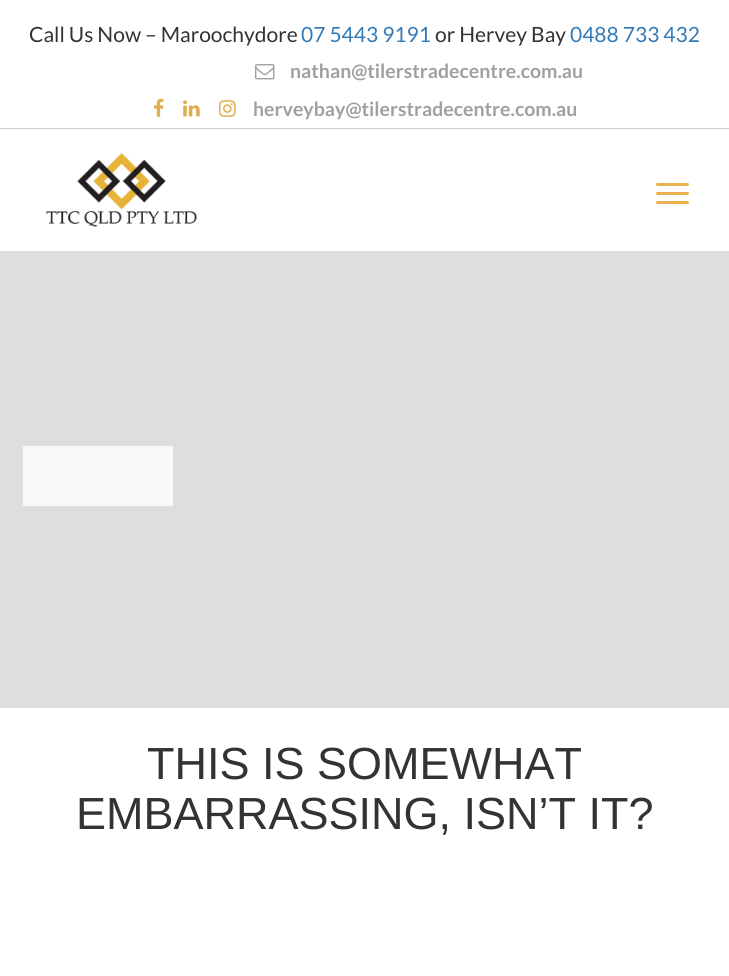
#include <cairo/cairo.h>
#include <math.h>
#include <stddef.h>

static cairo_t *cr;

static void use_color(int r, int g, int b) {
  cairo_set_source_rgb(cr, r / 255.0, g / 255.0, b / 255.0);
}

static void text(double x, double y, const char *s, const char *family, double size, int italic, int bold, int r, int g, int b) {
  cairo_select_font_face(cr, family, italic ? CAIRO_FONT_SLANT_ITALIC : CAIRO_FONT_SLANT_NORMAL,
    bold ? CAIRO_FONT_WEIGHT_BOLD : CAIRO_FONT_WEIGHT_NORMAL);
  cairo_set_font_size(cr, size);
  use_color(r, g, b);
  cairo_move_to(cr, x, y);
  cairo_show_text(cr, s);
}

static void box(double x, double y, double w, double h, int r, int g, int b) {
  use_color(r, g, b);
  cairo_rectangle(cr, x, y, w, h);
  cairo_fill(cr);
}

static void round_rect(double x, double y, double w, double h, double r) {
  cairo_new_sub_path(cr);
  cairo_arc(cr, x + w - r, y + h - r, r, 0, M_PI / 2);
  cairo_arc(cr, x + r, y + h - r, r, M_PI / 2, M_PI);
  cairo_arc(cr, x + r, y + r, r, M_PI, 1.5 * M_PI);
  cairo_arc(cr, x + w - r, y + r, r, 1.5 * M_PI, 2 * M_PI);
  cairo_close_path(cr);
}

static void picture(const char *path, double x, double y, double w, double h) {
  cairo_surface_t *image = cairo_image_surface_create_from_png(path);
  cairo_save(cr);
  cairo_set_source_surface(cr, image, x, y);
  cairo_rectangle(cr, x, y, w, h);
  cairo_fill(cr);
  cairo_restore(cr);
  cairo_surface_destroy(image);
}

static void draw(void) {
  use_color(255, 255, 255);
  cairo_paint(cr);
  box(0, 128, 729, 1, 204, 204, 204);
  picture("img_01.png", 154, 98, 10, 19);
  picture("img_02.png", 183, 100, 17, 17);
  picture("img_03.png", 219, 100, 17, 17);
  picture("img_04.png", 255, 64, 20, 16);
  picture("img_05.png", 46, 153, 151, 74);
  use_color(232, 176, 81);
  round_rect(656, 183, 33, 3, 1.5);
  cairo_fill(cr);
  round_rect(656, 192, 33, 3, 1.5);
  cairo_fill(cr);
  round_rect(656, 201, 33, 3, 1.5);
  cairo_fill(cr);
  box(0, 251, 729, 457, 222, 222, 222);
  box(23, 446, 150, 60, 248, 248, 248);
  text(29, 42, "Call Us Now – Maroochydore", "Lato", 21, 0, 0, 51, 51, 51);
  text(301, 42, "07 5443 9191", "Lato", 21, 0, 0, 51, 122, 183);
  text(435, 42, "or Hervey Bay", "Lato", 21, 0, 0, 51, 51, 51);
  text(570, 42, "0488 733 432", "Lato", 21, 0, 0, 51, 122, 183);
  text(290, 78, "nathan@tilerstradecentre.com.au", "Lato", 19.5, 0, 1, 159, 159, 165);
  text(253, 116, "herveybay@tilerstradecentre.com.au", "Lato", 19.5, 0, 1, 159, 159, 165);
  text(147, 779, "THIS IS SOMEWHAT", "Liberation Sans", 45, 0, 0, 51, 51, 51);
  text(76, 829, "EMBARRASSING, ISN’T IT?", "Liberation Sans", 45, 0, 0, 51, 51, 51);
}

int main(void) {
  cairo_surface_t *surface = cairo_image_surface_create(CAIRO_FORMAT_RGB24, 729, 976);
  cr = cairo_create(surface);
  cairo_font_options_t *options = cairo_font_options_create();
  cairo_font_options_set_hint_metrics(options, CAIRO_HINT_METRICS_OFF);
  cairo_font_options_set_hint_style(options, CAIRO_HINT_STYLE_NONE);
  cairo_set_font_options(cr, options);
  cairo_set_miter_limit(cr, 4);
  draw();
  cairo_surface_write_to_png(surface, "out.png");
  cairo_font_options_destroy(options);
  cairo_destroy(cr);
  cairo_surface_destroy(surface);
  return 0;
}
